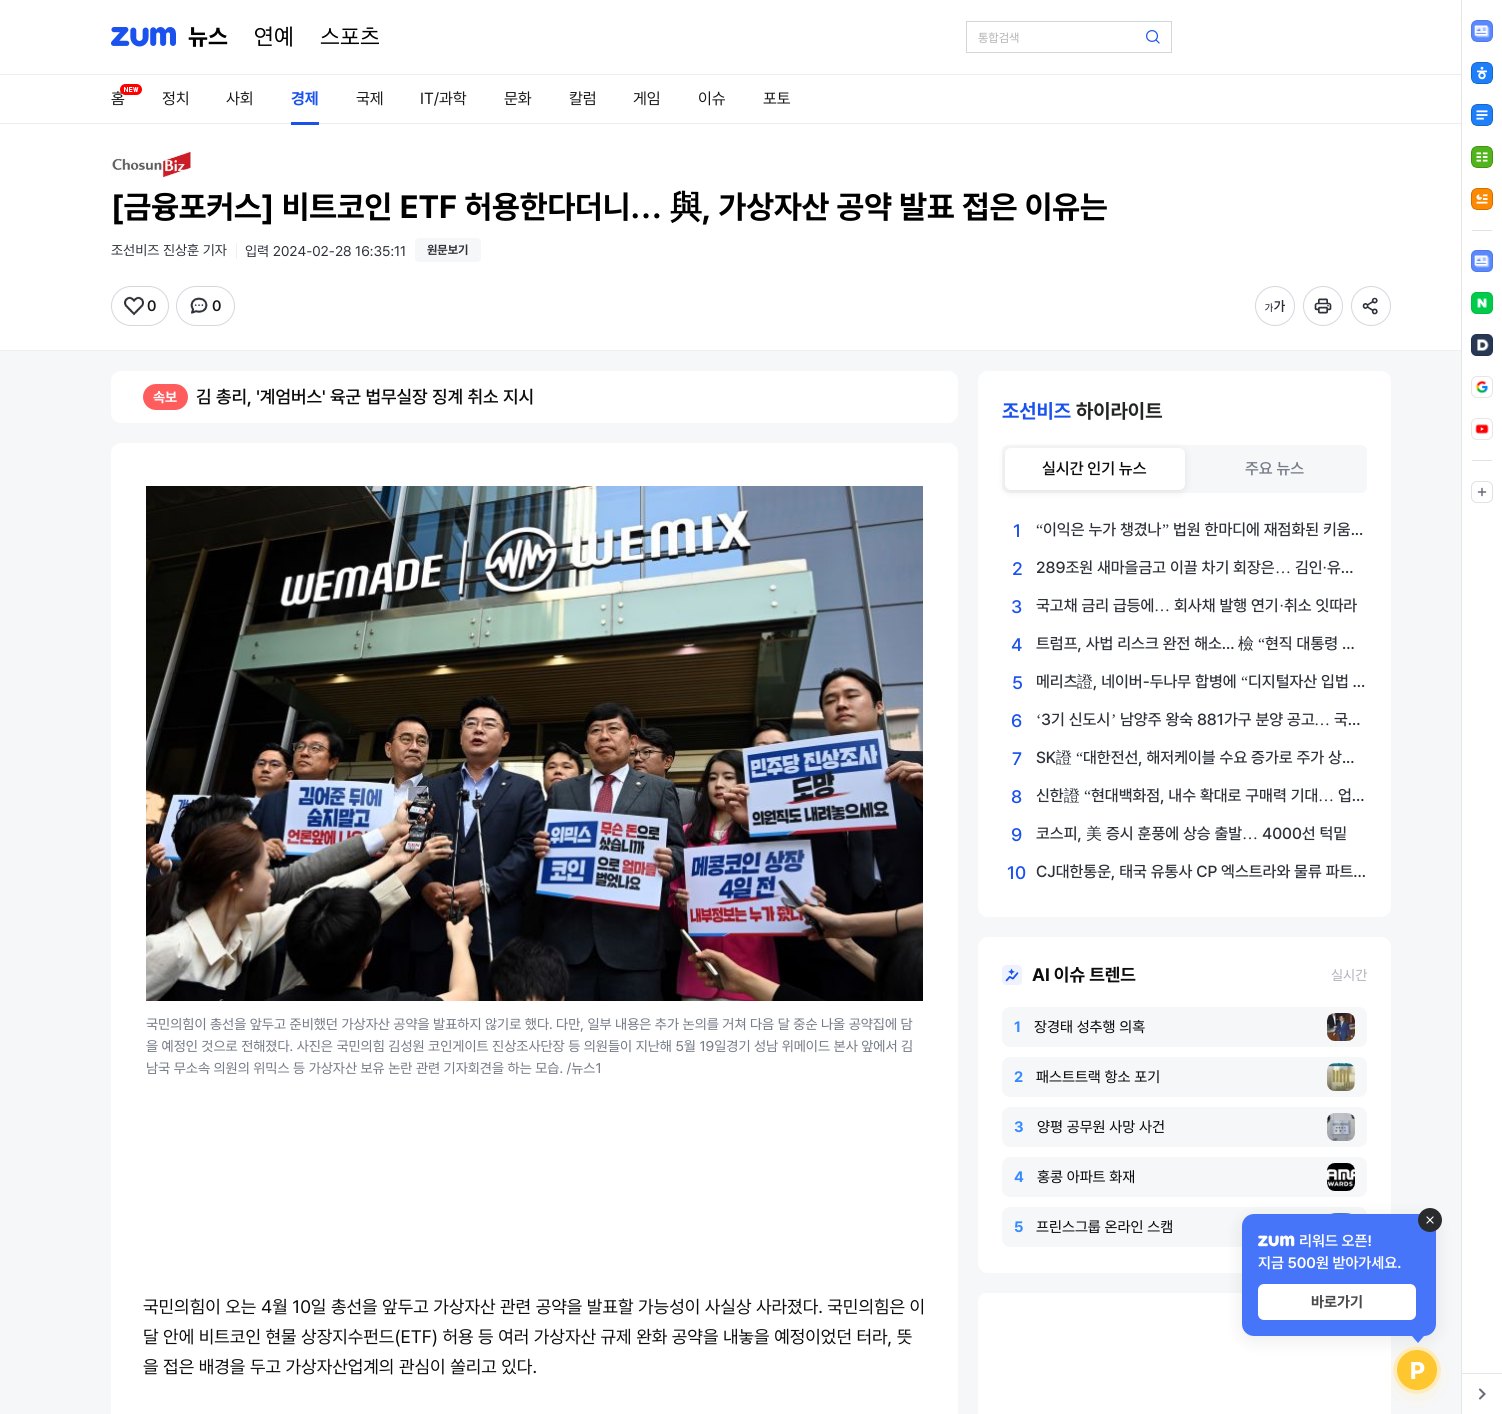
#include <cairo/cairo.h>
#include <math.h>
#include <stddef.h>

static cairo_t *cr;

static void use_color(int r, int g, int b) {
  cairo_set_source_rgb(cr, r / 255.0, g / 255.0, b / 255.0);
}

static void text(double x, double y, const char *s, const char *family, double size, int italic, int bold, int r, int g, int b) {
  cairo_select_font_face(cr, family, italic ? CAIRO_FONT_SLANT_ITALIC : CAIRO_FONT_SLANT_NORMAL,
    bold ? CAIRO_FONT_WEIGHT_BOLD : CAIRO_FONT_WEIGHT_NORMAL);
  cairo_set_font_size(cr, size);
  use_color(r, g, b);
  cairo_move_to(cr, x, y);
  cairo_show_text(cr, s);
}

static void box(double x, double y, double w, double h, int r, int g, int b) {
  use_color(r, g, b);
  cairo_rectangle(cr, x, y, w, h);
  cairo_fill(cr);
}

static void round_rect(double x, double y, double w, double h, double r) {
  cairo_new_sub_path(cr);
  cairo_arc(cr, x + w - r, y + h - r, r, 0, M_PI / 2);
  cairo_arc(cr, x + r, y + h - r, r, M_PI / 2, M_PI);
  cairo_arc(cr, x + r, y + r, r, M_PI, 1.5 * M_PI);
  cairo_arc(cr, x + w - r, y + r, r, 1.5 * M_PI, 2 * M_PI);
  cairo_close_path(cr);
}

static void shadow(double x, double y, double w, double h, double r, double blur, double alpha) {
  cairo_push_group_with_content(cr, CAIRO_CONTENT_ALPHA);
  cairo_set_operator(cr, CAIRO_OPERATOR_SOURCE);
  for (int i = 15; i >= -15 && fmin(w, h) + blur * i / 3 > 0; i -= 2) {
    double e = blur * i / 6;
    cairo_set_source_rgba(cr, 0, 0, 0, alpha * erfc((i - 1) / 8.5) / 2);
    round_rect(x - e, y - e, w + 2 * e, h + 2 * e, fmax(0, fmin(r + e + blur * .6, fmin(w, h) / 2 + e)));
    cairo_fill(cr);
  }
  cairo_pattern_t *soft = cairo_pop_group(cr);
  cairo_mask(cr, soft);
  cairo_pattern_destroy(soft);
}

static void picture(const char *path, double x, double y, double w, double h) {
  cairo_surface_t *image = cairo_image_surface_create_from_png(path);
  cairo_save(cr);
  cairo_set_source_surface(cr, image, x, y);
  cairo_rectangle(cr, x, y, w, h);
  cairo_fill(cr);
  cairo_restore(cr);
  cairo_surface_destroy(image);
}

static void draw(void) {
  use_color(246, 247, 249);
  cairo_paint(cr);
  box(0, 0, 1461, 123, 255, 255, 255);
  box(0, 123, 1461, 1, 237, 237, 237);
  picture("img_01.png", 111, 27, 65, 20);
  picture("img_02.png", 188, 27, 40, 20);
  picture("img_03.png", 255, 26, 37, 21);
  picture("img_04.png", 320, 27, 59, 18);
  cairo_rectangle(cr, 966.5, 21.5, 205, 31);
  use_color(209, 214, 219);
  cairo_set_line_width(cr, 1);
  cairo_stroke(cr);
  picture("img_05.png", 1146, 30, 14, 14);
  box(0, 74, 1461, 1, 237, 237, 237);
  box(0, 124, 1461, 226, 255, 255, 255);
  box(291, 122, 28, 3, 27, 82, 237);
  box(0, 350, 1461, 1, 238, 239, 242);
  picture("img_07.png", 111, 151, 80, 27);
  box(236, 243, 1, 16, 238, 239, 242);
  use_color(246, 247, 249);
  round_rect(415, 238, 66, 24, 4);
  cairo_fill(cr);
  round_rect(111.5, 286.5, 57, 39, 19.5);
  use_color(213, 215, 221);
  cairo_stroke(cr);
  picture("img_08.png", 124, 296, 20, 20);
  round_rect(176.5, 286.5, 58, 39, 19.5);
  cairo_stroke(cr);
  picture("img_09.png", 190, 297, 18, 17);
  cairo_arc(cr, 1275, 306, 19.5, 0, 2 * M_PI);
  cairo_stroke(cr);
  picture("img_10.png", 1265, 300, 20, 12);
  cairo_arc(cr, 1323, 306, 19.5, 0, 2 * M_PI);
  cairo_stroke(cr);
  picture("img_11.png", 1314, 298, 18, 16);
  cairo_arc(cr, 1371, 306, 19.5, 0, 2 * M_PI);
  cairo_stroke(cr);
  picture("img_12.png", 1362, 297, 16, 18);
  use_color(255, 255, 255);
  round_rect(111, 371, 847, 52, 10);
  cairo_fill(cr);
  use_color(255, 92, 94);
  round_rect(143, 384, 45, 26, 13);
  cairo_fill(cr);
  use_color(255, 255, 255);
  round_rect(111, 443, 847, 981, 10);
  cairo_fill(cr);
  picture("img_13.png", 146, 486, 777, 515);
  round_rect(978, 371, 413, 546, 10);
  cairo_fill(cr);
  use_color(246, 247, 249);
  round_rect(1002, 445, 365, 48, 6);
  cairo_fill(cr);
  use_color(34, 37, 43);
  shadow(1005, 450, 180, 42, 6, 4, 0.1);
  use_color(255, 255, 255);
  round_rect(1005, 448, 180, 42, 6);
  cairo_fill(cr);
  round_rect(978, 937, 413, 336, 10);
  cairo_fill(cr);
  picture("img_14.png", 1002, 965, 20, 20);
  use_color(246, 247, 249);
  round_rect(1002, 1007, 365, 40, 8);
  cairo_fill(cr);
  picture("img_15.png", 1327, 1013, 28, 28);
  round_rect(1002, 1057, 365, 40, 8);
  cairo_fill(cr);
  picture("img_16.png", 1327, 1063, 28, 28);
  round_rect(1002, 1107, 365, 40, 8);
  cairo_fill(cr);
  picture("img_17.png", 1327, 1113, 28, 28);
  round_rect(1002, 1157, 365, 40, 8);
  cairo_fill(cr);
  picture("img_18.png", 1327, 1163, 28, 28);
  round_rect(1002, 1207, 365, 40, 8);
  cairo_fill(cr);
  picture("img_19.png", 1331, 1213, 20, 1);
  use_color(255, 255, 255);
  round_rect(978, 1293, 413, 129, 8);
  cairo_fill(cr);
  use_color(0, 0, 0);
  shadow(1242, 1218, 194, 122, 12, 10, 0.08);
  box(1462, 0, 40, 1414, 255, 255, 255);
  picture("img_20.png", 1471, 250, 22, 22);
  round_rect(1471.5, 250.5, 21, 21, 5.5);
  cairo_set_source_rgba(cr, 0, 0, 0, 0.1);
  cairo_stroke(cr);
  picture("img_21.png", 1471, 292, 22, 22);
  round_rect(1471.5, 292.5, 21, 21, 5.5);
  cairo_stroke(cr);
  picture("img_22.png", 1471, 334, 22, 22);
  round_rect(1471.5, 334.5, 21, 21, 5.5);
  cairo_stroke(cr);
  picture("img_23.png", 1476, 380, 12, 14);
  round_rect(1471.5, 376.5, 21, 21, 5.5);
  use_color(230, 230, 230);
  cairo_stroke(cr);
  picture("img_24.png", 1475, 424, 14, 10);
  round_rect(1471.5, 418.5, 21, 21, 5.5);
  cairo_stroke(cr);
  box(1472, 460, 20, 1, 225, 226, 228);
  picture("img_25.png", 1471, 481, 22, 22);
  use_color(70, 117, 250);
  round_rect(1242, 1214, 194, 122, 12);
  cairo_fill(cr);
  use_color(41, 43, 45);
  cairo_arc(cr, 1430, 1220, 12, 0, 2 * M_PI);
  cairo_fill(cr);
  picture("img_26.png", 1426, 1216, 8, 8);
  picture("img_27.png", 1258, 1235, 37, 12);
  use_color(255, 255, 255);
  round_rect(1258, 1284, 158, 36, 6);
  cairo_fill(cr);
  use_color(70, 117, 250);
  cairo_new_path(cr);
  cairo_move_to(cr, 1412, 1336);
  cairo_line_to(cr, 1424, 1336);
  cairo_line_to(cr, 1418, 1343);
  cairo_close_path(cr);
  cairo_fill(cr);
  use_color(255, 236, 189);
  shadow(1393, 1352, 48, 48, 24, 6, 0.3);
  picture("img_28.png", 1393, 1346, 48, 48);
  box(1461, 0, 1, 1414, 229, 229, 229);
  picture("img_29.png", 1471, 20, 22, 22);
  round_rect(1471.5, 20.5, 21, 21, 5.5);
  cairo_set_source_rgba(cr, 0, 0, 0, 0.1);
  cairo_stroke(cr);
  picture("img_30.png", 1471, 62, 22, 22);
  round_rect(1471.5, 62.5, 21, 21, 5.5);
  cairo_stroke(cr);
  picture("img_31.png", 1471, 104, 22, 22);
  round_rect(1471.5, 104.5, 21, 21, 5.5);
  cairo_stroke(cr);
  picture("img_32.png", 1471, 146, 22, 22);
  round_rect(1471.5, 146.5, 21, 21, 5.5);
  cairo_stroke(cr);
  picture("img_33.png", 1471, 188, 22, 22);
  round_rect(1471.5, 188.5, 21, 21, 5.5);
  cairo_stroke(cr);
  box(1472, 230, 20, 1, 225, 226, 228);
  box(1462, 1373, 40, 1, 229, 229, 229);
  picture("img_34.png", 1479, 1388, 7, 12);
  text(978, 42, "통합검색", "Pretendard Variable", 12, 0, 0, 178, 178, 178);
  text(111, 104, "홈", "Pretendard Variable", 16, 0, 0, 22, 23, 22);
  use_color(255, 0, 0);
  round_rect(120, 84, 22, 11, 5.5);
  cairo_fill(cr);
  picture("img_06.png", 124, 87, 15, 5);
  text(162, 104, "정치", "Pretendard Variable", 16, 0, 0, 22, 23, 22);
  text(226, 104, "사회", "Pretendard Variable", 16, 0, 0, 22, 23, 22);
  text(291, 104, "경제", "Pretendard Variable", 16, 0, 1, 27, 82, 237);
  text(356, 104, "국제", "Pretendard Variable", 16, 0, 0, 22, 23, 22);
  text(420, 104, "IT/과학", "Pretendard Variable", 16, 0, 0, 22, 23, 22);
  text(504, 104, "문화", "Pretendard Variable", 16, 0, 0, 22, 23, 22);
  text(569, 104, "칼럼", "Pretendard Variable", 16, 0, 0, 22, 23, 22);
  text(633, 104, "게임", "Pretendard Variable", 16, 0, 0, 22, 23, 22);
  text(698, 104, "이슈", "Pretendard Variable", 16, 0, 0, 22, 23, 22);
  text(763, 104, "포토", "Pretendard Variable", 16, 0, 0, 22, 23, 22);
  text(111, 218, "[금융포커스] 비트코인 ETF 허용한다더니", "Pretendard Variable", 32, 0, 1, 0, 0, 0);
  text(630, 218, "…", "Liberation Serif", 32, 0, 1, 0, 0, 0);
  text(670, 218, "與", "WenQuanYi Zen Hei", 32, 0, 1, 0, 0, 0);
  text(702, 218, ", 가상자산 공약 발표 접은 이유는", "Pretendard Variable", 32, 0, 1, 0, 0, 0);
  text(111, 255, "조선비즈 진상훈 기자", "Pretendard Variable", 14, 0, 0, 45, 49, 57);
  text(245, 256, "입력 2024-02-28 16:35:11", "Pretendard Variable", 14, 0, 0, 45, 49, 57);
  text(427, 254, "원문보기", "Pretendard Variable", 12, 0, 1, 45, 49, 57);
  text(147, 311, "0", "Pretendard Variable Medium", 15, 0, 0, 22, 23, 22);
  text(212, 311, "0", "Pretendard Variable Medium", 15, 0, 0, 22, 23, 22);
  text(153, 402, "속보", "Pretendard Variable", 14, 0, 1, 255, 255, 255);
  text(196, 403, "김 총리, '계엄버스' 육군 법무실장 징계 취소 지시", "Pretendard Variable Medium", 18, 0, 0, 12, 12, 13);
  text(146, 1029, "국민의힘이 총선을 앞두고 준비했던 가상자산 공약을 발표하지 않기로 했다. 다만, 일부 내용은 추가 논의를 거쳐 다음 달 중순 나올 공약집에 담", "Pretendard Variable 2", 14, 0, 0, 119, 125, 136);
  text(146, 1051, "을 예정인 것으로 전해졌다. 사진은 국민의힘 김성원 코인게이트 진상조사단장 등 의원들이 지난해 5월 19일경기 성남 위메이드 본사 앞에서 김", "Pretendard Variable 2", 14, 0, 0, 119, 125, 136);
  text(146, 1073, "남국 무소속 의원의 위믹스 등 가상자산 보유 논란 관련 기자회견을 하는 모습. /뉴스1", "Pretendard Variable 2", 14, 0, 0, 119, 125, 136);
  text(143, 1313, "국민의힘이 오는 4월 10일 총선을 앞두고 가상자산 관련 공약을 발표할 가능성이 사실상 사라졌다. 국민의힘은 이", "Pretendard Variable", 18, 0, 0, 12, 12, 13);
  text(143, 1343, "달 안에 비트코인 현물 상장지수펀드(ETF) 허용 등 여러 가상자산 규제 완화 공약을 내놓을 예정이었던 터라, 뜻", "Pretendard Variable", 18, 0, 0, 12, 12, 13);
  text(143, 1373, "을 접은 배경을 두고 가상자산업계의 관심이 쏠리고 있다.", "Pretendard Variable", 18, 0, 0, 12, 12, 13);
  text(1002, 418, "조선비즈", "Pretendard Variable", 20, 0, 1, 27, 82, 237);
  text(1076, 418, "하이라이트", "Pretendard Variable", 20, 0, 1, 35, 36, 36);
  text(1042, 474, "실시간 인기 뉴스", "Pretendard Variable Medium", 16, 0, 0, 12, 12, 13);
  text(1245, 474, "주요 뉴스", "Pretendard Variable Medium", 16, 0, 0, 119, 125, 136);
  text(1013, 537, "1", "Pretendard Variable 2 Medium", 18, 0, 0, 27, 82, 237);
  text(1036, 535, "“", "Liberation Serif", 16, 0, 0, 45, 49, 57);
  text(1043, 535, "이익은 누가 챙겼나", "Pretendard Variable 2 Medium", 16, 0, 0, 45, 49, 57);
  text(1162, 535, "”", "Liberation Serif", 16, 0, 0, 45, 49, 57);
  text(1173, 535, "법원 한마디에 재점화된 키움...", "Pretendard Variable 2 Medium", 16, 0, 0, 45, 49, 57);
  text(1012, 575, "2", "Pretendard Variable 2 Medium", 18, 0, 0, 27, 82, 237);
  text(1036, 573, "289조원 새마을금고 이끌 차기 회장은", "Pretendard Variable 2 Medium", 16, 0, 0, 45, 49, 57);
  text(1295, 573, "김인", "Pretendard Variable 2 Medium", 16, 0, 0, 45, 49, 57);
  text(1322, 573, "·", "Liberation Serif", 16, 0, 0, 45, 49, 57);
  text(1327, 573, "유...", "Pretendard Variable 2 Medium", 16, 0, 0, 45, 49, 57);
  text(1275, 573, "…", "Liberation Serif", 16, 0, 0, 45, 49, 57);
  text(1011, 613, "3", "Pretendard Variable 2 Medium", 18, 0, 0, 27, 82, 237);
  text(1036, 611, "국고채 금리 급등에", "Pretendard Variable 2 Medium", 16, 0, 0, 45, 49, 57);
  text(1174, 611, "회사채 발행 연기", "Pretendard Variable 2 Medium", 16, 0, 0, 45, 49, 57);
  text(1279, 611, "·", "Liberation Serif", 16, 0, 0, 45, 49, 57);
  text(1284, 611, "취소 잇따라", "Pretendard Variable 2 Medium", 16, 0, 0, 45, 49, 57);
  text(1154, 611, "…", "Liberation Serif", 16, 0, 0, 45, 49, 57);
  text(1011, 651, "4", "Pretendard Variable 2 Medium", 18, 0, 0, 27, 82, 237);
  text(1036, 649, "트럼프, 사법 리스크 완전 해소...", "Pretendard Variable 2 Medium", 16, 0, 0, 45, 49, 57);
  text(1238, 649, "檢", "WenQuanYi Zen Hei Medium", 16, 0, 0, 45, 49, 57);
  text(1258, 649, "“", "Liberation Serif", 16, 0, 0, 45, 49, 57);
  text(1265, 649, "현직 대통령 ...", "Pretendard Variable 2 Medium", 16, 0, 0, 45, 49, 57);
  text(1012, 689, "5", "Pretendard Variable 2 Medium", 18, 0, 0, 27, 82, 237);
  text(1036, 687, "메리츠", "Pretendard Variable 2 Medium", 16, 0, 0, 45, 49, 57);
  text(1077, 687, "證", "WenQuanYi Zen Hei Medium", 16, 0, 0, 45, 49, 57);
  text(1093, 687, ", 네이버-두나무 합병에", "Pretendard Variable 2 Medium", 16, 0, 0, 45, 49, 57);
  text(1241, 687, "“", "Liberation Serif", 16, 0, 0, 45, 49, 57);
  text(1248, 687, "디지털자산 입법 ...", "Pretendard Variable 2 Medium", 16, 0, 0, 45, 49, 57);
  text(1011, 727, "6", "Pretendard Variable 2 Medium", 18, 0, 0, 27, 82, 237);
  text(1036, 725, "‘", "Liberation Serif", 16, 0, 0, 45, 49, 57);
  text(1041, 725, "3기 신도시", "Pretendard Variable 2 Medium", 16, 0, 0, 45, 49, 57);
  text(1111, 725, "’", "Liberation Serif", 16, 0, 0, 45, 49, 57);
  text(1120, 725, "남양주 왕숙 881가구 분양 공고", "Pretendard Variable 2 Medium", 16, 0, 0, 45, 49, 57);
  text(1334, 725, "국...", "Pretendard Variable 2 Medium", 16, 0, 0, 45, 49, 57);
  text(1314, 725, "…", "Liberation Serif", 16, 0, 0, 45, 49, 57);
  text(1012, 765, "7", "Pretendard Variable 2 Medium", 18, 0, 0, 27, 82, 237);
  text(1036, 763, "SK", "Pretendard Variable 2 Medium", 16, 0, 0, 45, 49, 57);
  text(1056, 763, "證", "WenQuanYi Zen Hei Medium", 16, 0, 0, 45, 49, 57);
  text(1076, 763, "“", "Liberation Serif", 16, 0, 0, 45, 49, 57);
  text(1083, 763, "대한전선, 해저케이블 수요 증가로 주가 상...", "Pretendard Variable 2 Medium", 16, 0, 0, 45, 49, 57);
  text(1011, 803, "8", "Pretendard Variable 2 Medium", 18, 0, 0, 27, 82, 237);
  text(1036, 801, "신한", "Pretendard Variable 2 Medium", 16, 0, 0, 45, 49, 57);
  text(1064, 801, "證", "WenQuanYi Zen Hei Medium", 16, 0, 0, 45, 49, 57);
  text(1084, 801, "“", "Liberation Serif", 16, 0, 0, 45, 49, 57);
  text(1091, 801, "현대백화점, 내수 확대로 구매력 기대", "Pretendard Variable 2 Medium", 16, 0, 0, 45, 49, 57);
  text(1338, 801, "업...", "Pretendard Variable 2 Medium", 16, 0, 0, 45, 49, 57);
  text(1318, 801, "…", "Liberation Serif", 16, 0, 0, 45, 49, 57);
  text(1011, 841, "9", "Pretendard Variable 2 Medium", 18, 0, 0, 27, 82, 237);
  text(1036, 839, "코스피,", "Pretendard Variable 2 Medium", 16, 0, 0, 45, 49, 57);
  text(1086, 839, "美", "WenQuanYi Zen Hei Medium", 16, 0, 0, 45, 49, 57);
  text(1106, 839, "증시 훈풍에 상승 출발", "Pretendard Variable 2 Medium", 16, 0, 0, 45, 49, 57);
  text(1242, 839, "…", "Liberation Serif", 16, 0, 0, 45, 49, 57);
  text(1262, 839, "4000선 턱밑", "Pretendard Variable 2 Medium", 16, 0, 0, 45, 49, 57);
  text(1007, 879, "10", "Pretendard Variable 2 Medium", 18, 0, 0, 27, 82, 237);
  text(1036, 877, "CJ대한통운, 태국 유통사 CP 엑스트라와 물류 파트...", "Pretendard Variable 2 Medium", 16, 0, 0, 45, 49, 57);
  text(1032, 981, "AI 이슈 트렌드", "Pretendard Variable", 18, 0, 1, 12, 12, 13);
  text(1331, 980, "실시간", "Pretendard Variable", 14, 0, 0, 172, 177, 185);
  text(1014, 1032, "1", "Pretendard Variable", 15, 0, 1, 55, 138, 255);
  text(1034, 1032, "장경태 성추행 의혹", "Pretendard Variable 2", 15, 0, 0, 12, 12, 13);
  text(1014, 1082, "2", "Pretendard Variable", 15, 0, 1, 55, 138, 255);
  text(1036, 1082, "패스트트랙 항소 포기", "Pretendard Variable 2", 15, 0, 0, 12, 12, 13);
  text(1014, 1132, "3", "Pretendard Variable", 15, 0, 1, 55, 138, 255);
  text(1037, 1132, "양평 공무원 사망 사건", "Pretendard Variable 2", 15, 0, 0, 12, 12, 13);
  text(1014, 1182, "4", "Pretendard Variable", 15, 0, 1, 55, 138, 255);
  text(1037, 1182, "홍콩 아파트 화재", "Pretendard Variable 2", 15, 0, 0, 12, 12, 13);
  text(1014, 1232, "5", "Pretendard Variable", 15, 0, 1, 55, 138, 255);
  text(1036, 1232, "프린스그룹 온라인 스캠", "Pretendard Variable 2", 15, 0, 0, 12, 12, 13);
  text(1299, 1246, "리워드 오픈!", "Pretendard Variable SemiBold", 15, 0, 0, 255, 255, 255);
  text(1258, 1268, "지금 500원 받아가세요.", "Pretendard Variable SemiBold", 15, 0, 0, 255, 255, 255);
  text(1311, 1307, "바로가기", "Pretendard Variable", 15, 0, 1, 73, 73, 73);
}

int main(void) {
  cairo_surface_t *surface = cairo_image_surface_create(CAIRO_FORMAT_RGB24, 1502, 1414);
  cr = cairo_create(surface);
  cairo_font_options_t *options = cairo_font_options_create();
  cairo_font_options_set_hint_metrics(options, CAIRO_HINT_METRICS_OFF);
  cairo_font_options_set_hint_style(options, CAIRO_HINT_STYLE_NONE);
  cairo_set_font_options(cr, options);
  cairo_set_miter_limit(cr, 4);
  draw();
  cairo_surface_write_to_png(surface, "out.png");
  cairo_font_options_destroy(options);
  cairo_destroy(cr);
  cairo_surface_destroy(surface);
  return 0;
}
